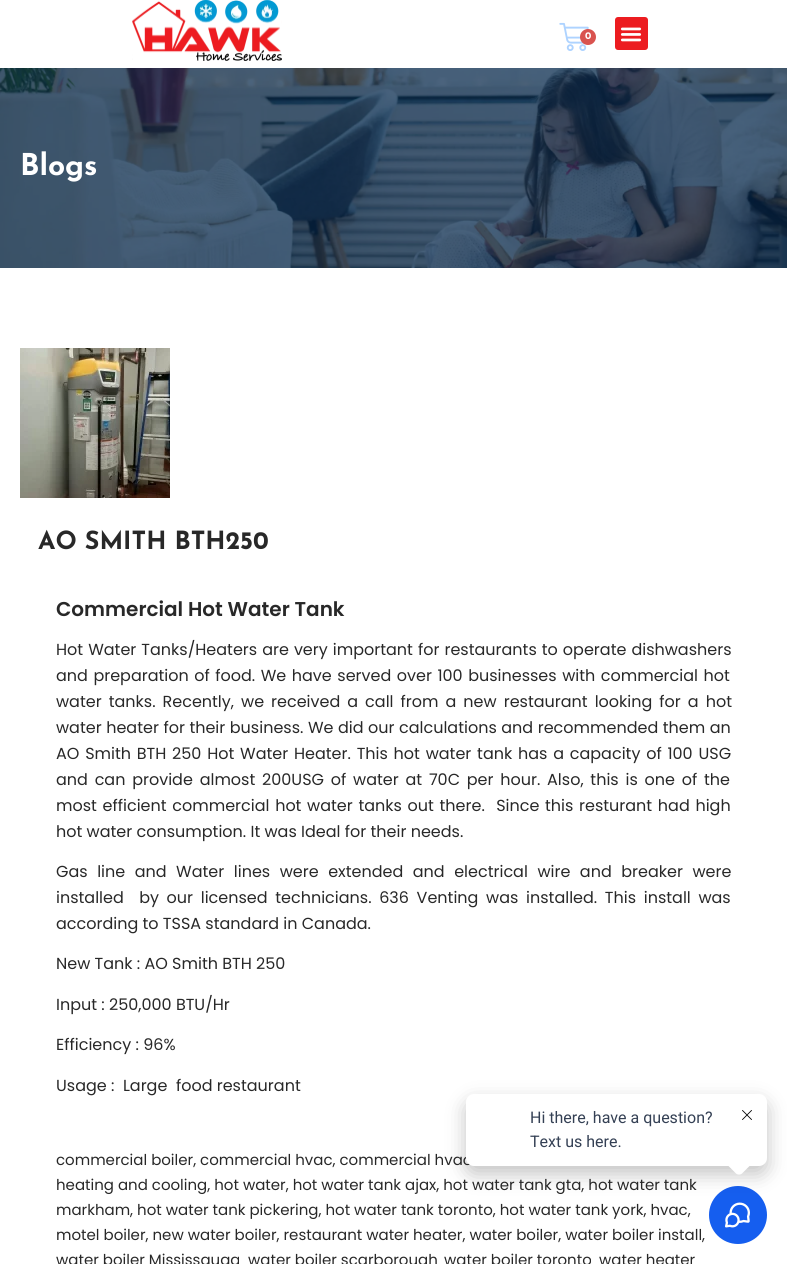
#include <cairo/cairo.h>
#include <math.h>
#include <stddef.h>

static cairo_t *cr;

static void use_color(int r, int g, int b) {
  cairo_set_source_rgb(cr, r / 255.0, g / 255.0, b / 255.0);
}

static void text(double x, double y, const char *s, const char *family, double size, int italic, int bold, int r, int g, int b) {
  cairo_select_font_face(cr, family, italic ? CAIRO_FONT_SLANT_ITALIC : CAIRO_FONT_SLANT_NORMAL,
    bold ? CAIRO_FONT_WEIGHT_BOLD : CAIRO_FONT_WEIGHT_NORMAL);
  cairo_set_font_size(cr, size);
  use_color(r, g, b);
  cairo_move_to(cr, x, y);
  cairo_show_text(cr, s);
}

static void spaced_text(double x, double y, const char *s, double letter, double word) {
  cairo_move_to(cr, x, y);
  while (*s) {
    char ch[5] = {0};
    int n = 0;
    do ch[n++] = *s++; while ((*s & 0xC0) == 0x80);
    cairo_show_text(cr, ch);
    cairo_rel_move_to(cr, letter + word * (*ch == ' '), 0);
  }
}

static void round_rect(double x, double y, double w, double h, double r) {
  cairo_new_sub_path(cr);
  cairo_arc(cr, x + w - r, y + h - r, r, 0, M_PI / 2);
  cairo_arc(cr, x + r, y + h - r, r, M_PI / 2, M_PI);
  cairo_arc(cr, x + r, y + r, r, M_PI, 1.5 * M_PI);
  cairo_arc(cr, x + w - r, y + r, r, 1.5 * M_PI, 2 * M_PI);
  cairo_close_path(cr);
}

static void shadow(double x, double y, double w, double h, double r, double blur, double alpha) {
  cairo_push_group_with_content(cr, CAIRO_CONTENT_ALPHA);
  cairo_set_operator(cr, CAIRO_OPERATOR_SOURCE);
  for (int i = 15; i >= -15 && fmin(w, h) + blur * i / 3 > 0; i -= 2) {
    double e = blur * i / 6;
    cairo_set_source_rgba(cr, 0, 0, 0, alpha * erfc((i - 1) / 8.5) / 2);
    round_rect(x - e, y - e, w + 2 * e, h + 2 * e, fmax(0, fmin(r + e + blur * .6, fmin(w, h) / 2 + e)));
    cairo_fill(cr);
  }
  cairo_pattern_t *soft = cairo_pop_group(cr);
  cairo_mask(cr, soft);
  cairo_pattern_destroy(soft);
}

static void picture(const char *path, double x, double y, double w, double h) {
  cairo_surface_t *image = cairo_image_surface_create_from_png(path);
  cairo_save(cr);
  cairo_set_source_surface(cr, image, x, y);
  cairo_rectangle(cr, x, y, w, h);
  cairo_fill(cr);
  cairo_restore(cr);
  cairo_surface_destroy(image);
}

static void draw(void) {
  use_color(255, 255, 255);
  cairo_paint(cr);
  picture("img_01.png", 132, 0, 150, 61);
  picture("img_02.png", 559, 22, 30, 29);
  use_color(217, 83, 79);
  cairo_arc(cr, 588, 37, 8, 0, 2 * M_PI);
  cairo_fill(cr);
  use_color(236, 28, 32);
  round_rect(615, 17, 33, 33, 3);
  cairo_fill(cr);
  picture("img_03.png", 620, 27, 22, 15);
  picture("img_04.png", 0, 68, 787, 200);
  picture("img_05.png", 20, 348, 150, 150);
  use_color(21, 94, 239);
  cairo_arc(cr, 738, 1215, 29, 0, 2 * M_PI);
  cairo_fill(cr);
  picture("img_07.png", 725, 1202, 25, 26);
  use_color(0, 0, 0);
  shadow(466, 1102, 301, 72, 8, 10, 0.24);
  text(585, 39, "0", "Josefin Sans", 10, 0, 1, 255, 255, 255);
  text(20, 175, "Blogs", "Josefin Sans", 30, 0, 1, 255, 255, 255);
  text(38, 549, "AO SMITH BTH250", "Josefin Sans", 25, 0, 1, 40, 40, 40);
  text(56, 616, "Commercial Hot Water Tank", "Poppins SemiBold", 20, 0, 0, 40, 40, 40);
  cairo_select_font_face(cr, "Poppins", CAIRO_FONT_SLANT_NORMAL, CAIRO_FONT_WEIGHT_NORMAL);
  cairo_set_font_size(cr, 16);
  spaced_text(56, 655, "Hot Water Tanks/Heaters are very important for restaurants to operate dishwashers", 0, 0.75);
  spaced_text(56, 681, "and preparation of food. We have served over 100 businesses with commercial hot", 0, 1.25);
  spaced_text(56, 707, "water tanks. Recently, we received a call from a new restaurant looking for a hot", 0, 2.75);
  spaced_text(56, 733, "water heater for their business. We did our calculations and recommended them an", 0, 0.25);
  spaced_text(56, 759, "AO Smith BTH 250 Hot Water Heater. This hot water tank has a capacity of 100 USG", 0, 1.5);
  spaced_text(56, 785, "and can provide almost 200USG of water at 70C per hour. Also, this is one of the", 0, 2.5);
  spaced_text(56, 811, "most efficient commercial hot water tanks out there.  Since this resturant had high", 0, 1.4);
  text(56, 837, "hot water consumption. It was Ideal for their needs.", "Poppins", 16, 0, 0, 40, 40, 40);
  spaced_text(56, 877, "Gas line and Water lines were extended and electrical wire and breaker were", 0, 5.25);
  spaced_text(56, 903, "installed  by our licensed technicians. 636 Venting was installed. This install was", 0, 3.4);
  text(56, 929, "according to TSSA standard in Canada.", "Poppins", 16, 0, 0, 40, 40, 40);
  text(56, 969, "New Tank : AO Smith BTH 250", "Poppins", 16, 0, 0, 40, 40, 40);
  text(56, 1010, "Input : 250,000 BTU/Hr", "Poppins", 16, 0, 0, 40, 40, 40);
  text(56, 1050, "Efficiency : 96%", "Poppins", 16, 0, 0, 40, 40, 40);
  text(56, 1091, "Usage :  Large  food restaurant", "Poppins", 16, 0, 0, 40, 40, 40);
  text(56, 1165, "commercial boiler, commercial hvac, commercial hvac", "Poppins", 15, 0, 0, 40, 40, 40);
  text(56, 1190, "heating and cooling, hot water, hot water tank ajax, hot water tank gta, hot water tank", "Poppins", 15, 0, 0, 40, 40, 40);
  text(56, 1215, "markham, hot water tank pickering, hot water tank toronto, hot water tank york, hvac,", "Poppins", 15, 0, 0, 40, 40, 40);
  text(56, 1240, "motel boiler, new water boiler, restaurant water heater, water boiler, water boiler install,", "Poppins", 15, 0, 0, 40, 40, 40);
  text(56, 1265, "water boiler Mississauga", "Poppins", 15, 0, 0, 40, 40, 40);
  text(248, 1265, "water boiler scarborough", "Poppins", 15, 0, 0, 40, 40, 40);
  text(444, 1265, "water boiler toronto", "Poppins", 15, 0, 0, 40, 40, 40);
  text(599, 1265, "water heater", "Poppins", 15, 0, 0, 40, 40, 40);
  use_color(255, 255, 255);
  round_rect(466, 1094, 301, 72, 8);
  cairo_fill(cr);
  text(530, 1123, "Hi there, have a question?", "Roboto", 16, 0, 0, 52, 64, 84);
  text(530, 1147, "Text us here.", "Roboto", 16, 0, 0, 52, 64, 84);
  use_color(255, 255, 255);
  cairo_new_path(cr);
  cairo_move_to(cr, 742, 1150.5);
  cairo_line_to(cr, 750.5, 1159);
  cairo_curve_to(cr, 752, 1160.5, 752, 1163.5, 750.5, 1165);
  cairo_line_to(cr, 742, 1173.5);
  cairo_curve_to(cr, 740.5, 1175, 737.5, 1175, 736, 1173.5);
  cairo_line_to(cr, 727.5, 1165);
  cairo_curve_to(cr, 726, 1163.5, 726, 1160.5, 727.5, 1159);
  cairo_line_to(cr, 736, 1150.5);
  cairo_curve_to(cr, 737.5, 1149, 740.5, 1149, 742, 1150.5);
  cairo_close_path(cr);
  cairo_fill(cr);
  picture("img_06.png", 742, 1110, 10, 10);
}

int main(void) {
  cairo_surface_t *surface = cairo_image_surface_create(CAIRO_FORMAT_RGB24, 787, 1264);
  cr = cairo_create(surface);
  cairo_font_options_t *options = cairo_font_options_create();
  cairo_font_options_set_hint_metrics(options, CAIRO_HINT_METRICS_OFF);
  cairo_font_options_set_hint_style(options, CAIRO_HINT_STYLE_NONE);
  cairo_set_font_options(cr, options);
  cairo_set_miter_limit(cr, 4);
  draw();
  cairo_surface_write_to_png(surface, "out.png");
  cairo_font_options_destroy(options);
  cairo_destroy(cr);
  cairo_surface_destroy(surface);
  return 0;
}
